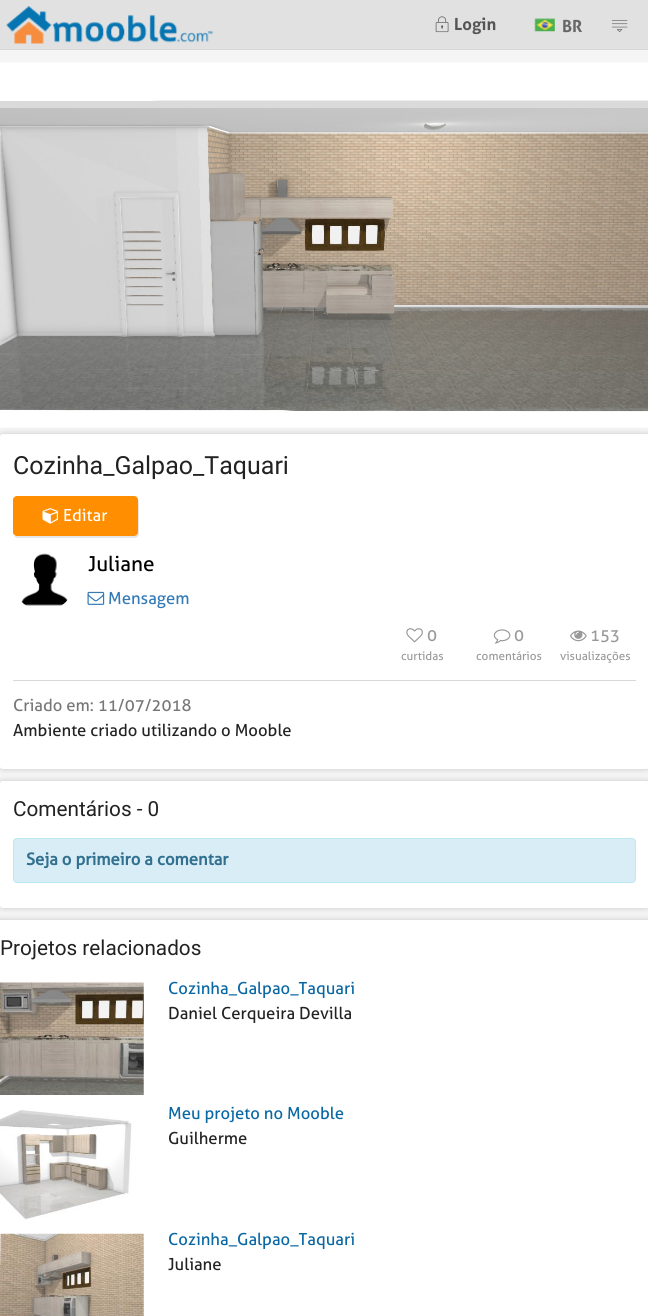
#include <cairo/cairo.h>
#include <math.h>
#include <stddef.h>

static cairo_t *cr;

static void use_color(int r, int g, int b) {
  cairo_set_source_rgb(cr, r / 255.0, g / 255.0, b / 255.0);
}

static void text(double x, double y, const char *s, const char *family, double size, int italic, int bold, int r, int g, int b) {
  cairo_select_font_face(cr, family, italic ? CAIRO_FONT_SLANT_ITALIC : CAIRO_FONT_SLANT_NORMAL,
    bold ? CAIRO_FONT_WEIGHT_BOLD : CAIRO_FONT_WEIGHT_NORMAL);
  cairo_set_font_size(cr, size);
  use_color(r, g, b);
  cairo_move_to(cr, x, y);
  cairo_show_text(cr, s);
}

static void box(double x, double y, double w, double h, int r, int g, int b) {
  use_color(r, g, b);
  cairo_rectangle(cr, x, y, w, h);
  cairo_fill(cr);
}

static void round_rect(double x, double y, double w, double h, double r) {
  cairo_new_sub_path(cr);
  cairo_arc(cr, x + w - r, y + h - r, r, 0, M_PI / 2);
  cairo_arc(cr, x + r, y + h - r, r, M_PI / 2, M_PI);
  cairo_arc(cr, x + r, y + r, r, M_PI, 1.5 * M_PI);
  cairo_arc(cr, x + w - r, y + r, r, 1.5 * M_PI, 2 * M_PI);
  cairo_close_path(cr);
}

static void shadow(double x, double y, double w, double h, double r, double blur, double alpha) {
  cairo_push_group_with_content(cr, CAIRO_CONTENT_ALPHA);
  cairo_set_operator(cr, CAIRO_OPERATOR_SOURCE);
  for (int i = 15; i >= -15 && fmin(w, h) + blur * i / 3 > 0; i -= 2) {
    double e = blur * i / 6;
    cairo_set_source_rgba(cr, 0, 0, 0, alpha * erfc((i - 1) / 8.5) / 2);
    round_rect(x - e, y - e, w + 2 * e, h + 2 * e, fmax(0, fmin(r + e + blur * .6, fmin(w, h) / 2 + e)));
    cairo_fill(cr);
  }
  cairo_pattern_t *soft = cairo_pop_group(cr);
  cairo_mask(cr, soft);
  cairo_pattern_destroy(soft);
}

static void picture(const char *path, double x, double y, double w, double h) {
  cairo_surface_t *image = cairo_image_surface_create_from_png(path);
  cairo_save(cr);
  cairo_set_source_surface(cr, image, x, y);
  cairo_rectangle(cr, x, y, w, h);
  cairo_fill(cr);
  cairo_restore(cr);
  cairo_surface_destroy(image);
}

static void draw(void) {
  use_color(245, 245, 245);
  cairo_paint(cr);
  box(0, 0, 648, 49, 225, 225, 225);
  box(0, 49, 648, 1, 216, 216, 216);
  picture("img_01.png", 6, 6, 208, 38);
  picture("img_02.png", 435, 16, 14, 17);
  picture("img_03.png", 534, 18, 21, 14);
  picture("img_04.png", 611, 20, 17, 12);
  use_color(0, 0, 0);
  shadow(0, 434, 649, 335, 2.5, 3, 0.2);
  picture("img_05.png", 0, 62, 648, 366);
  use_color(255, 255, 255);
  round_rect(0, 434, 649, 335, 2.5);
  cairo_fill(cr);
  use_color(230, 230, 230);
  cairo_new_path(cr);
  cairo_move_to(cr, 14, 536);
  cairo_curve_to(cr, 15, 537, 16, 538, 18, 538);
  cairo_line_to(cr, 135, 538);
  cairo_curve_to(cr, 137, 538, 139, 536, 139, 534);
  cairo_line_to(cr, 139, 502);
  cairo_curve_to(cr, 139, 501, 138, 499, 137, 499);
  cairo_line_to(cr, 138, 532);
  cairo_curve_to(cr, 138, 535, 136, 536, 134, 536);
  cairo_line_to(cr, 16, 536);
  cairo_close_path(cr);
  cairo_fill(cr);
  use_color(255, 142, 0);
  round_rect(13, 496, 125, 40, 4);
  cairo_fill(cr);
  picture("img_06.png", 42, 508, 16, 16);
  picture("img_07.png", 21, 553, 47, 53);
  picture("img_08.png", 87, 591, 18, 14);
  picture("img_09.png", 406, 628, 17, 15);
  picture("img_10.png", 493, 629, 18, 15);
  picture("img_11.png", 570, 630, 17, 12);
  box(13, 680, 623, 1, 216, 216, 216);
  use_color(0, 0, 0);
  shadow(0, 781, 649, 127, 2.5, 3, 0.2);
  use_color(255, 255, 255);
  round_rect(0, 781, 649, 127, 2.5);
  cairo_fill(cr);
  use_color(217, 237, 247);
  round_rect(13.5, 838.5, 622, 44, 3.5);
  cairo_fill_preserve(cr);
  use_color(188, 232, 241);
  cairo_set_line_width(cr, 1);
  cairo_stroke(cr);
  use_color(0, 0, 0);
  shadow(-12, 920, 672, 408, 2.5, 3, 0.2);
  box(0, 920, 648, 396, 255, 255, 255);
  picture("img_12.png", 0, 982, 144, 113);
  picture("img_13.png", 0, 1110, 132, 110);
  picture("img_14.png", 0, 1233, 144, 83);
  text(454, 30, "Login", "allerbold", 16.7, 0, 1, 85, 85, 85);
  text(562, 32, "BR", "allerbold", 16.7, 0, 1, 102, 102, 102);
  text(13, 474, "Cozinha_Galpao_Taquari", "Roboto", 25, 0, 0, 34, 34, 34);
  text(63, 521, "Editar", "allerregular", 16.7, 0, 0, 255, 255, 255);
  text(88, 571, "Juliane", "allerregular", 20.75, 0, 0, 0, 0, 0);
  text(108, 604, "Mensagem", "allerregular", 16.7, 0, 0, 51, 122, 183);
  text(427, 641, "0", "allerregular", 16.7, 0, 0, 153, 153, 153);
  text(401, 660, "curtidas", "allerregular", 11.75, 0, 0, 153, 153, 153);
  text(514, 641, "0", "allerregular", 16.7, 0, 0, 153, 153, 153);
  text(476, 660, "comentários", "allerregular", 11.75, 0, 0, 153, 153, 153);
  text(590, 641, "153", "allerregular", 16.7, 0, 0, 153, 153, 153);
  text(560, 660, "visualizações", "allerregular", 11.75, 0, 0, 153, 153, 153);
  text(13, 711, "Criado em: 11/07/2018", "allerregular", 16.7, 0, 0, 119, 119, 119);
  text(13, 736, "Ambiente criado utilizando o Mooble", "allerregular", 16.7, 0, 0, 34, 34, 34);
  text(13, 816, "Comentários - 0", "Roboto", 20.75, 0, 0, 34, 34, 34);
  text(26, 865, "Seja o primeiro a comentar", "allerregular", 16.7, 0, 1, 49, 112, 143);
  text(0, 955, "Projetos relacionados", "Roboto", 20.75, 0, 0, 34, 34, 34);
  text(168, 994, "Cozinha_Galpao_Taquari", "allerregular", 16.7, 0, 0, 9, 103, 163);
  text(168, 1019, "Daniel Cerqueira Devilla", "allerregular", 16.7, 0, 0, 34, 34, 34);
  text(168, 1119, "Meu projeto no Mooble", "allerregular", 16.7, 0, 0, 9, 103, 163);
  text(168, 1144, "Guilherme", "allerregular", 16.7, 0, 0, 34, 34, 34);
  text(168, 1245, "Cozinha_Galpao_Taquari", "allerregular", 16.7, 0, 0, 9, 103, 163);
  text(168, 1270, "Juliane", "allerregular", 16.7, 0, 0, 34, 34, 34);
}

int main(void) {
  cairo_surface_t *surface = cairo_image_surface_create(CAIRO_FORMAT_RGB24, 648, 1316);
  cr = cairo_create(surface);
  cairo_font_options_t *options = cairo_font_options_create();
  cairo_font_options_set_hint_metrics(options, CAIRO_HINT_METRICS_OFF);
  cairo_font_options_set_hint_style(options, CAIRO_HINT_STYLE_NONE);
  cairo_set_font_options(cr, options);
  cairo_set_miter_limit(cr, 4);
  draw();
  cairo_surface_write_to_png(surface, "out.png");
  cairo_font_options_destroy(options);
  cairo_destroy(cr);
  cairo_surface_destroy(surface);
  return 0;
}
